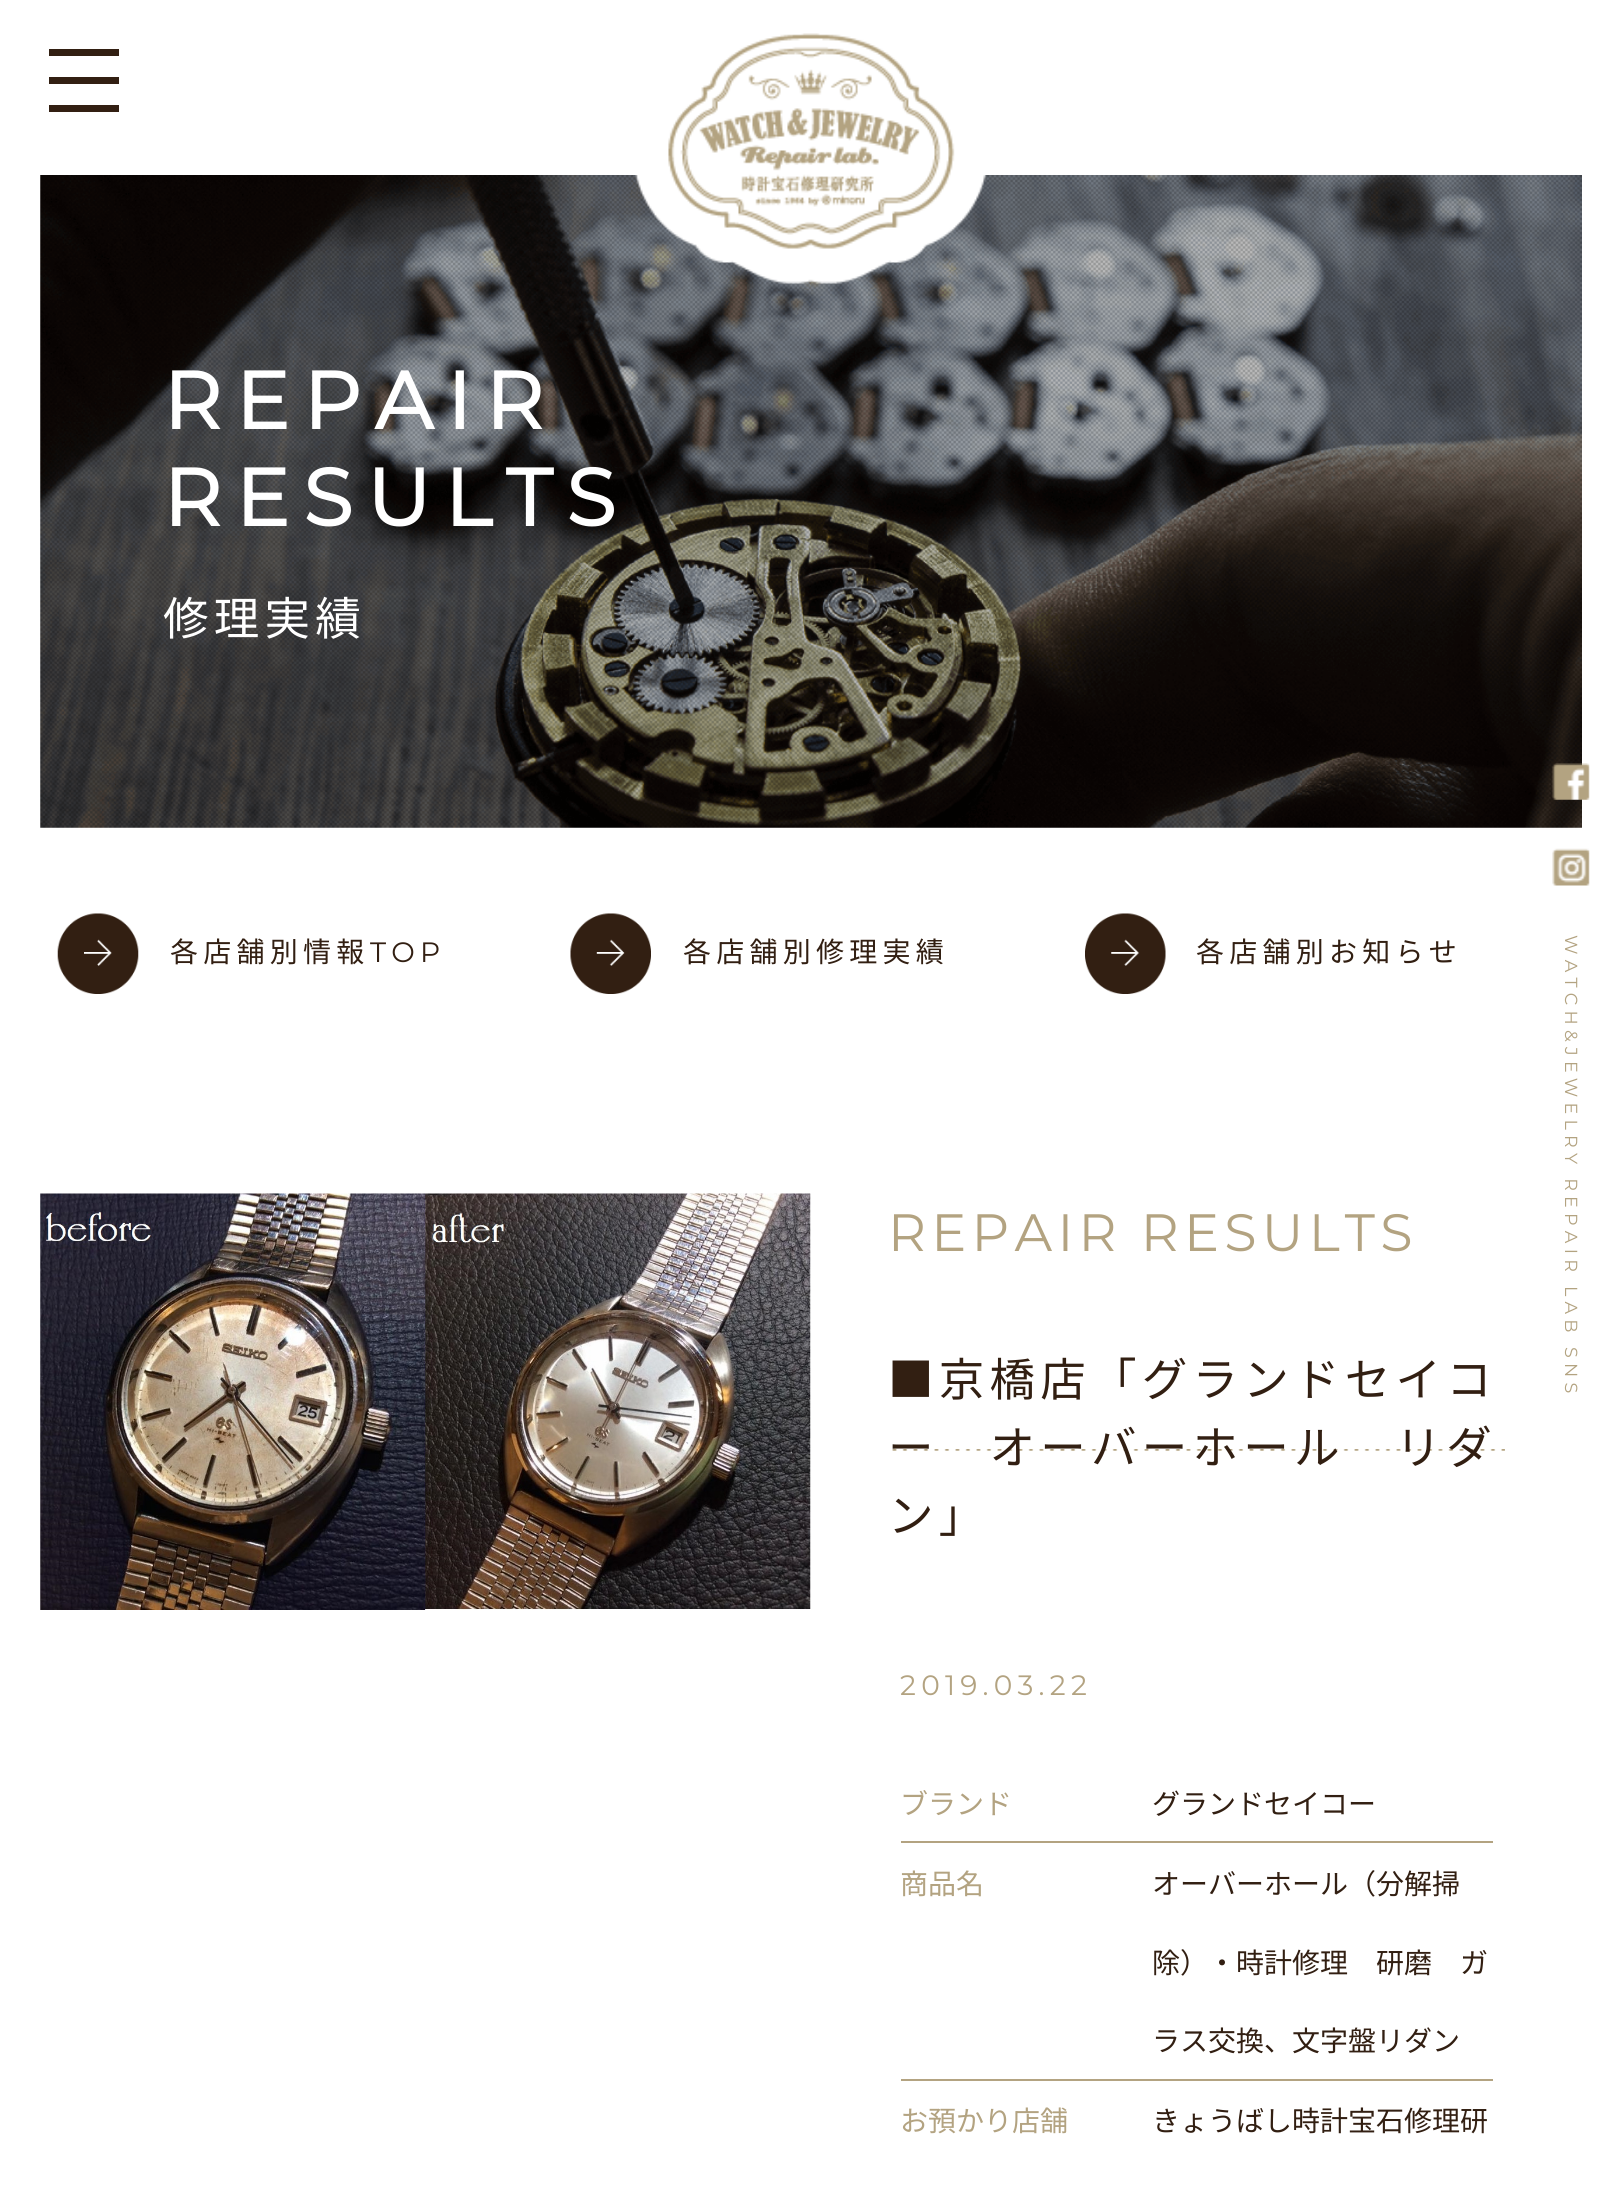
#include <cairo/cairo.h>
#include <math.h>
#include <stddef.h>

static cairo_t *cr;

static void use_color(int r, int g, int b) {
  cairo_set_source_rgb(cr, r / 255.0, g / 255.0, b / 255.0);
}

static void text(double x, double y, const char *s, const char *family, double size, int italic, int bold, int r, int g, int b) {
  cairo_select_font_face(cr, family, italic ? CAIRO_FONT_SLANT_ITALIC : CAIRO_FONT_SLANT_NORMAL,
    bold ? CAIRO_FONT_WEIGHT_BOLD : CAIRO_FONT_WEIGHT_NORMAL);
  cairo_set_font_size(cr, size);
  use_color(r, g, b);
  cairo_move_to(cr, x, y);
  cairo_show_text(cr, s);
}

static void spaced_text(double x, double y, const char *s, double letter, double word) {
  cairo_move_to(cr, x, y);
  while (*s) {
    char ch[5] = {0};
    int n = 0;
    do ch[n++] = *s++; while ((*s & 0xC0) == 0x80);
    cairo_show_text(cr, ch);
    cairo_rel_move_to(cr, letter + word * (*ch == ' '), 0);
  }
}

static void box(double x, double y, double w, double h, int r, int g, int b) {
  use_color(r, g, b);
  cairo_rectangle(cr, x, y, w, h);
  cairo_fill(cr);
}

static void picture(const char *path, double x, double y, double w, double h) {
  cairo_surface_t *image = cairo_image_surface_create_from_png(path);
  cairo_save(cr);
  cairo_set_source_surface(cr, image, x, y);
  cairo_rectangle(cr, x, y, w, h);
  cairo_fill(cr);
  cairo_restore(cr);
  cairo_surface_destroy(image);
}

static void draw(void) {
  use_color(255, 255, 255);
  cairo_paint(cr);
  box(49, 49, 70, 7, 50, 31, 18);
  box(49, 77, 70, 7, 50, 31, 18);
  box(49, 105, 70, 7, 50, 31, 18);
  picture("img_02.png", 40, 175, 1542, 653);
  picture("img_01.png", 635, 33, 351, 251);
  picture("img_03.png", 57, 913, 82, 81);
  picture("img_04.png", 570, 913, 81, 81);
  picture("img_05.png", 1085, 913, 81, 81);
  picture("img_06.png", 1552, 763, 38, 37);
  picture("img_07.png", 1552, 848, 38, 38);
  picture("img_08.png", 40, 1193, 771, 417);
  picture("img_09.png", 892, 1449, 613, 2);
  box(901, 1841, 592, 2, 179, 163, 129);
  box(901, 2079, 592, 2, 179, 163, 129);
  cairo_select_font_face(cr, "Montserrat", CAIRO_FONT_SLANT_NORMAL, CAIRO_FONT_WEIGHT_BOLD);
  cairo_set_font_size(cr, 80.5);
  use_color(255, 255, 255);
  spaced_text(163, 429, "REPAIR", 14, 0);
  spaced_text(163, 526, "RESULTS", 14, 0);
  cairo_select_font_face(cr, "Noto Sans JP Thin", CAIRO_FONT_SLANT_NORMAL, CAIRO_FONT_WEIGHT_NORMAL);
  cairo_set_font_size(cr, 45.5);
  spaced_text(163, 635, "修理実績", 5.25, 0);
  cairo_set_font_size(cr, 28);
  use_color(50, 31, 18);
  spaced_text(170, 962, "各店舗別情報", 5.25, 0);
  cairo_select_font_face(cr, "Montserrat Thin", CAIRO_FONT_SLANT_NORMAL, CAIRO_FONT_WEIGHT_NORMAL);
  spaced_text(370, 962, "TOP", 5.25, 0);
  cairo_select_font_face(cr, "Noto Sans JP Thin", CAIRO_FONT_SLANT_NORMAL, CAIRO_FONT_WEIGHT_NORMAL);
  spaced_text(683, 962, "各店舗別修理実績", 5.25, 0);
  spaced_text(1196, 962, "各店舗別お知らせ", 5.25, 0);
  cairo_select_font_face(cr, "Montserrat Thin", CAIRO_FONT_SLANT_NORMAL, CAIRO_FONT_WEIGHT_NORMAL);
  cairo_set_font_size(cr, 17.5);
  use_color(179, 163, 129);
  cairo_save(cr);
  cairo_translate(cr, 1565, 935);
  cairo_rotate(cr, 90 * M_PI / 180);
  spaced_text(0, 0, "WATCH&JEWELRY REPAIR LAB", 5.25, -1);
  cairo_restore(cr);
  cairo_save(cr);
  cairo_translate(cr, 1565, 1347);
  cairo_rotate(cr, 90 * M_PI / 180);
  spaced_text(0, 0, "SNS", 5.25, 0);
  cairo_restore(cr);
  cairo_set_font_size(cr, 52.5);
  spaced_text(888, 1251, "REPAIR RESULTS", 5.25, 0);
  cairo_select_font_face(cr, "Noto Sans JP Thin", CAIRO_FONT_SLANT_NORMAL, CAIRO_FONT_WEIGHT_NORMAL);
  cairo_set_font_size(cr, 45.5);
  use_color(50, 31, 18);
  spaced_text(888, 1396, "■京橋店「グランドセイコ", 5.25, 0);
  spaced_text(888, 1464, "ー　オーバーホール　リダ", 5.25, 0);
  spaced_text(888, 1532, "ン」", 5.25, 0);
  cairo_select_font_face(cr, "Montserrat Thin", CAIRO_FONT_SLANT_NORMAL, CAIRO_FONT_WEIGHT_NORMAL);
  cairo_set_font_size(cr, 28);
  use_color(179, 163, 129);
  spaced_text(900, 1695, "2019.03.22", 5.25, 0);
  text(900, 1814, "ブランド", "Noto Sans JP Thin", 28, 0, 0, 179, 163, 129);
  text(1152, 1814, "グランドセイコー", "Noto Sans JP Thin", 28, 0, 0, 50, 31, 18);
  text(900, 1894, "商品名", "Noto Sans JP Thin", 28, 0, 0, 179, 163, 129);
  text(1152, 1894, "オーバーホール（分解掃", "Noto Sans JP Thin", 28, 0, 0, 50, 31, 18);
  text(1152, 1973, "除）・時計修理　研磨　ガ", "Noto Sans JP Thin", 28, 0, 0, 50, 31, 18);
  text(1152, 2051, "ラス交換、文字盤リダン", "Noto Sans JP Thin", 28, 0, 0, 50, 31, 18);
  text(900, 2131, "お預かり店舗", "Noto Sans JP Thin", 28, 0, 0, 179, 163, 129);
  text(1152, 2131, "きょうばし時計宝石修理研", "Noto Sans JP Thin", 28, 0, 0, 50, 31, 18);
}

int main(void) {
  cairo_surface_t *surface = cairo_image_surface_create(CAIRO_FORMAT_RGB24, 1622, 2190);
  cr = cairo_create(surface);
  cairo_font_options_t *options = cairo_font_options_create();
  cairo_font_options_set_hint_metrics(options, CAIRO_HINT_METRICS_OFF);
  cairo_font_options_set_hint_style(options, CAIRO_HINT_STYLE_NONE);
  cairo_set_font_options(cr, options);
  cairo_set_miter_limit(cr, 4);
  draw();
  cairo_surface_write_to_png(surface, "out.png");
  cairo_font_options_destroy(options);
  cairo_destroy(cr);
  cairo_surface_destroy(surface);
  return 0;
}
